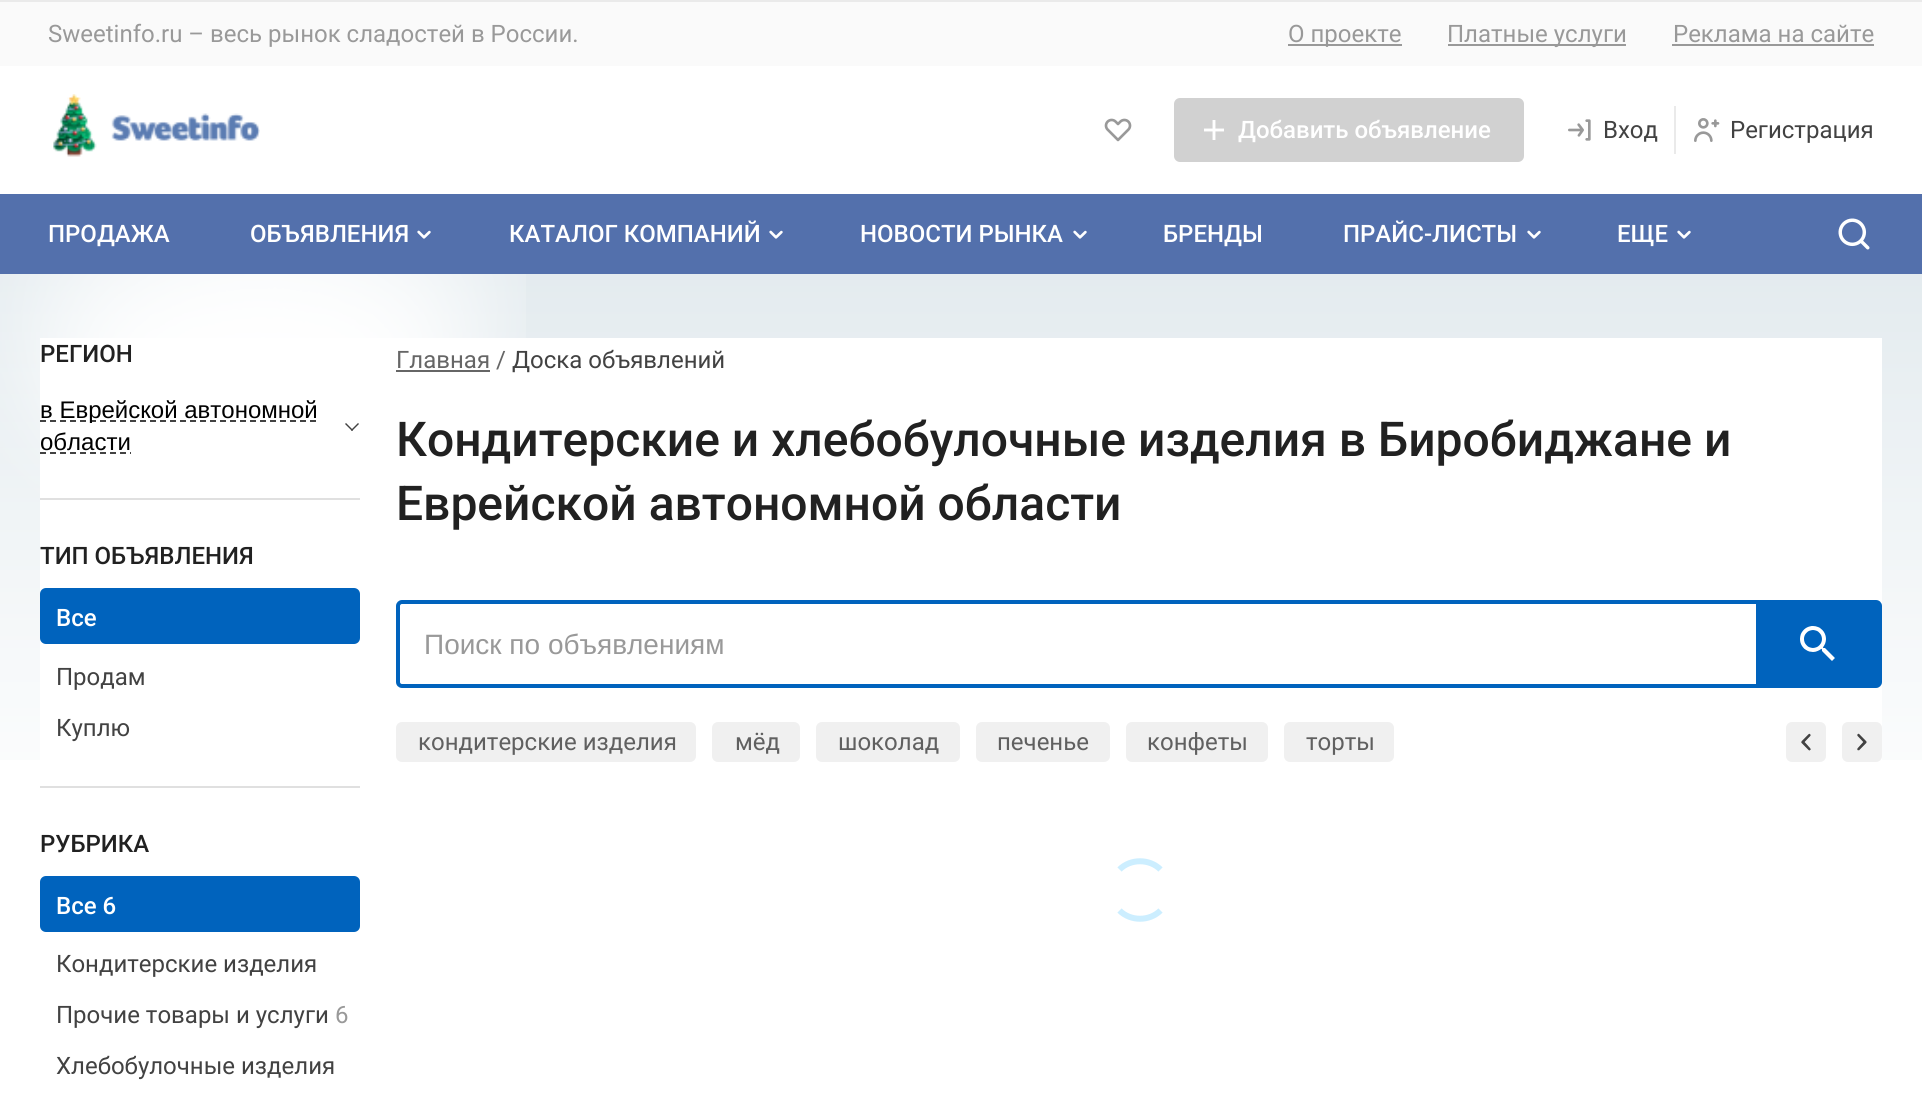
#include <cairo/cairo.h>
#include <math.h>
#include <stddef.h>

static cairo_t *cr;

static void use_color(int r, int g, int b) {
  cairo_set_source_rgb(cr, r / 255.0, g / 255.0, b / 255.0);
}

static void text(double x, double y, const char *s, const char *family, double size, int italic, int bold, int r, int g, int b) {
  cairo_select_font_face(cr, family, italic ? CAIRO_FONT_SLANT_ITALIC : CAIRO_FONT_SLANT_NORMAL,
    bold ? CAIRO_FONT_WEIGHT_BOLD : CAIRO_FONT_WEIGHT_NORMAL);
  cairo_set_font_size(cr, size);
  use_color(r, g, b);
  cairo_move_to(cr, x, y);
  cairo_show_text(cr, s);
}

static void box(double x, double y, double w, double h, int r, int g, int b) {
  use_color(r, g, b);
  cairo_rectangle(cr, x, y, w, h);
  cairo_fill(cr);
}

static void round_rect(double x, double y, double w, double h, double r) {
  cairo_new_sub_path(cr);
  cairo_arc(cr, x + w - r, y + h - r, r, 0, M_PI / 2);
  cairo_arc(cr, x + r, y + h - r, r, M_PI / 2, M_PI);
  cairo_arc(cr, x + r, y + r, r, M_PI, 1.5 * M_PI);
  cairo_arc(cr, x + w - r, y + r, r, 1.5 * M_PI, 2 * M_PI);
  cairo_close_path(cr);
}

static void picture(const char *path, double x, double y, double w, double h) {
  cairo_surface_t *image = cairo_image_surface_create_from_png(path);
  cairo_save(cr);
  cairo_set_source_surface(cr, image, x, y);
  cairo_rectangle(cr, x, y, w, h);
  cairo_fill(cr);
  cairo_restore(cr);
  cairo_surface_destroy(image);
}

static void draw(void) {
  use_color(255, 255, 255);
  cairo_paint(cr);
  picture("img_01.png", 0, 274, 1922, 486);
  box(0, 2, 1922, 64, 250, 250, 250);
  box(0, 0, 1922, 2, 234, 234, 234);
  box(1288, 44, 114, 2, 153, 153, 153);
  box(1448, 44, 178, 2, 153, 153, 153);
  box(1672, 44, 202, 2, 153, 153, 153);
  picture("img_02.png", 53, 94, 207, 63);
  picture("img_03.png", 1104, 118, 28, 24);
  use_color(209, 209, 209);
  round_rect(1174, 98, 350, 64, 6);
  cairo_fill(cr);
  picture("img_04.png", 1204, 120, 20, 20);
  picture("img_05.png", 1568, 119, 23, 22);
  box(1674, 106, 2, 48, 234, 234, 234);
  picture("img_06.png", 1694, 118, 26, 24);
  box(0, 194, 1922, 80, 83, 112, 172);
  picture("img_07.png", 417, 230, 14, 9);
  picture("img_07.png", 769, 230, 14, 9);
  picture("img_07.png", 1073, 230, 14, 9);
  picture("img_07.png", 1527, 230, 14, 9);
  picture("img_07.png", 1677, 230, 14, 9);
  picture("img_08.png", 1838, 218, 32, 32);
  picture("img_09.png", 0, 274, 526, 224);
  box(40, 338, 1842, 422, 255, 255, 255);
  box(40, 498, 320, 2, 224, 224, 224);
  cairo_new_path(cr);
  cairo_move_to(cr, 40, 421);
  cairo_line_to(cr, 318, 421);
  use_color(66, 66, 66);
  cairo_set_dash(cr, (double[]){6, 4}, 2, 0);
  cairo_stroke(cr);
  cairo_new_path(cr);
  cairo_move_to(cr, 40, 453);
  cairo_line_to(cr, 131, 453);
  cairo_stroke(cr);
  cairo_new_path(cr);
  cairo_move_to(cr, 346, 423);
  cairo_line_to(cr, 353, 430);
  cairo_line_to(cr, 352, 431);
  cairo_line_to(cr, 345, 424);
  cairo_close_path(cr);
  cairo_fill(cr);
  cairo_new_path(cr);
  cairo_move_to(cr, 351, 430);
  cairo_line_to(cr, 358, 423);
  cairo_line_to(cr, 359, 424);
  cairo_line_to(cr, 352, 431);
  cairo_close_path(cr);
  cairo_fill(cr);
  box(40, 786, 320, 2, 224, 224, 224);
  use_color(0, 99, 189);
  round_rect(40, 588, 320, 56, 6);
  cairo_fill(cr);
  round_rect(40, 876, 320, 56, 6);
  cairo_fill(cr);
  box(396, 370, 94, 2, 102, 102, 102);
  round_rect(398, 602, 1482, 84, 4);
  use_color(0, 99, 189);
  cairo_set_line_width(cr, 4);
  cairo_set_dash(cr, NULL, 0, 0);
  cairo_stroke(cr);
  box(1756, 604, 122, 80, 0, 99, 189);
  picture("img_10.png", 1800, 626, 35, 35);
  use_color(240, 240, 240);
  round_rect(396, 722, 300, 40, 6);
  cairo_fill(cr);
  round_rect(712, 722, 88, 40, 6);
  cairo_fill(cr);
  round_rect(816, 722, 144, 40, 6);
  cairo_fill(cr);
  round_rect(976, 722, 134, 40, 6);
  cairo_fill(cr);
  round_rect(1126, 722, 142, 40, 6);
  cairo_fill(cr);
  round_rect(1284, 722, 110, 40, 6);
  cairo_fill(cr);
  round_rect(1786, 722, 40, 40, 6);
  cairo_fill(cr);
  picture("img_11.png", 1801, 733, 10, 18);
  round_rect(1842, 722, 40, 40, 6);
  cairo_fill(cr);
  picture("img_12.png", 1857, 733, 10, 18);
  cairo_new_path(cr);
  cairo_move_to(cr, 1119.5, 869.5);
  cairo_curve_to(cr, 1130.5, 858.5, 1149.5, 858.5, 1160.5, 869.5);
  use_color(204, 238, 255);
  cairo_set_line_width(cr, 6);
  cairo_stroke(cr);
  cairo_new_path(cr);
  cairo_move_to(cr, 1160.5, 910.5);
  cairo_curve_to(cr, 1149.5, 921.5, 1130.5, 921.5, 1119.5, 910.5);
  cairo_stroke(cr);
  text(48, 42, "Sweetinfo.ru – весь рынок сладостей в России.", "Roboto", 24, 0, 0, 153, 153, 153);
  text(1288, 42, "О проекте", "Roboto", 24, 0, 0, 153, 153, 153);
  text(1447, 42, "Платные услуги", "Roboto", 24, 0, 0, 153, 153, 153);
  text(1673, 42, "Реклама на сайте", "Roboto", 24, 0, 0, 153, 153, 153);
  text(1238, 138, "Добавить объявление", "Roboto Medium", 24, 0, 0, 255, 255, 255);
  text(1603, 138, "Вход", "Roboto", 24, 0, 0, 66, 66, 66);
  text(1730, 138, "Регистрация", "Roboto", 24, 0, 0, 66, 66, 66);
  text(48, 242, "ПРОДАЖА", "Roboto Medium", 24, 0, 0, 255, 255, 255);
  text(250, 242, "ОБЪЯВЛЕНИЯ", "Roboto Medium", 24, 0, 0, 255, 255, 255);
  text(509, 242, "КАТАЛОГ КОМПАНИЙ", "Roboto Medium", 24, 0, 0, 255, 255, 255);
  text(860, 242, "НОВОСТИ РЫНКА", "Roboto Medium", 24, 0, 0, 255, 255, 255);
  text(1163, 242, "БРЕНДЫ", "Roboto Medium", 24, 0, 0, 255, 255, 255);
  text(1343, 242, "ПРАЙС-ЛИСТЫ", "Roboto Medium", 24, 0, 0, 255, 255, 255);
  text(1617, 242, "ЕЩЕ", "Roboto Medium", 24, 0, 0, 255, 255, 255);
  text(40, 362, "РЕГИОН", "Roboto Medium", 24, 0, 0, 33, 33, 33);
  text(40, 418, "в Еврейской автономной", "Liberation Sans", 24, 0, 0, 0, 0, 0);
  text(40, 450, "области", "Liberation Sans", 24, 0, 0, 0, 0, 0);
  text(40, 564, "ТИП ОБЪЯВЛЕНИЯ", "Roboto Medium", 24, 0, 0, 33, 33, 33);
  text(56, 626, "Все", "Roboto Medium", 24, 0, 0, 255, 255, 255);
  text(56, 685, "Продам", "Roboto", 24, 0, 0, 66, 66, 66);
  text(56, 736, "Куплю", "Roboto", 24, 0, 0, 66, 66, 66);
  text(40, 852, "РУБРИКА", "Roboto Medium", 24, 0, 0, 33, 33, 33);
  text(56, 914, "Все 6", "Roboto Medium", 24, 0, 0, 255, 255, 255);
  text(56, 972, "Кондитерские изделия", "Roboto", 24, 0, 0, 66, 66, 66);
  text(56, 1023, "Прочие товары и услуги", "Roboto", 24, 0, 0, 66, 66, 66);
  text(335, 1023, "6", "Roboto", 24, 0, 0, 153, 153, 153);
  text(56, 1074, "Хлебобулочные изделия", "Roboto", 24, 0, 0, 66, 66, 66);
  text(396, 368, "Главная /", "Roboto", 24, 0, 0, 102, 102, 102);
  text(512, 368, "Доска объявлений", "Roboto", 24, 0, 0, 66, 66, 66);
  text(396, 456, "Кондитерские и хлебобулочные изделия в Биробиджане и", "Roboto Medium", 48, 0, 0, 33, 33, 33);
  text(396, 520, "Еврейской автономной области", "Roboto Medium", 48, 0, 0, 33, 33, 33);
  text(424, 654, "Поиск по объявлениям", "Liberation Sans", 28, 0, 0, 153, 153, 153);
  text(418, 750, "кондитерские изделия", "Roboto", 24, 0, 0, 96, 96, 96);
  text(735, 750, "мёд", "Roboto", 24, 0, 0, 96, 96, 96);
  text(838, 750, "шоколад", "Roboto", 24, 0, 0, 96, 96, 96);
  text(997, 750, "печенье", "Roboto", 24, 0, 0, 96, 96, 96);
  text(1147, 750, "конфеты", "Roboto", 24, 0, 0, 96, 96, 96);
  text(1306, 750, "торты", "Roboto", 24, 0, 0, 96, 96, 96);
}

int main(void) {
  cairo_surface_t *surface = cairo_image_surface_create(CAIRO_FORMAT_RGB24, 1922, 1108);
  cr = cairo_create(surface);
  cairo_font_options_t *options = cairo_font_options_create();
  cairo_font_options_set_hint_metrics(options, CAIRO_HINT_METRICS_OFF);
  cairo_font_options_set_hint_style(options, CAIRO_HINT_STYLE_NONE);
  cairo_set_font_options(cr, options);
  cairo_set_miter_limit(cr, 4);
  draw();
  cairo_surface_write_to_png(surface, "out.png");
  cairo_font_options_destroy(options);
  cairo_destroy(cr);
  cairo_surface_destroy(surface);
  return 0;
}
